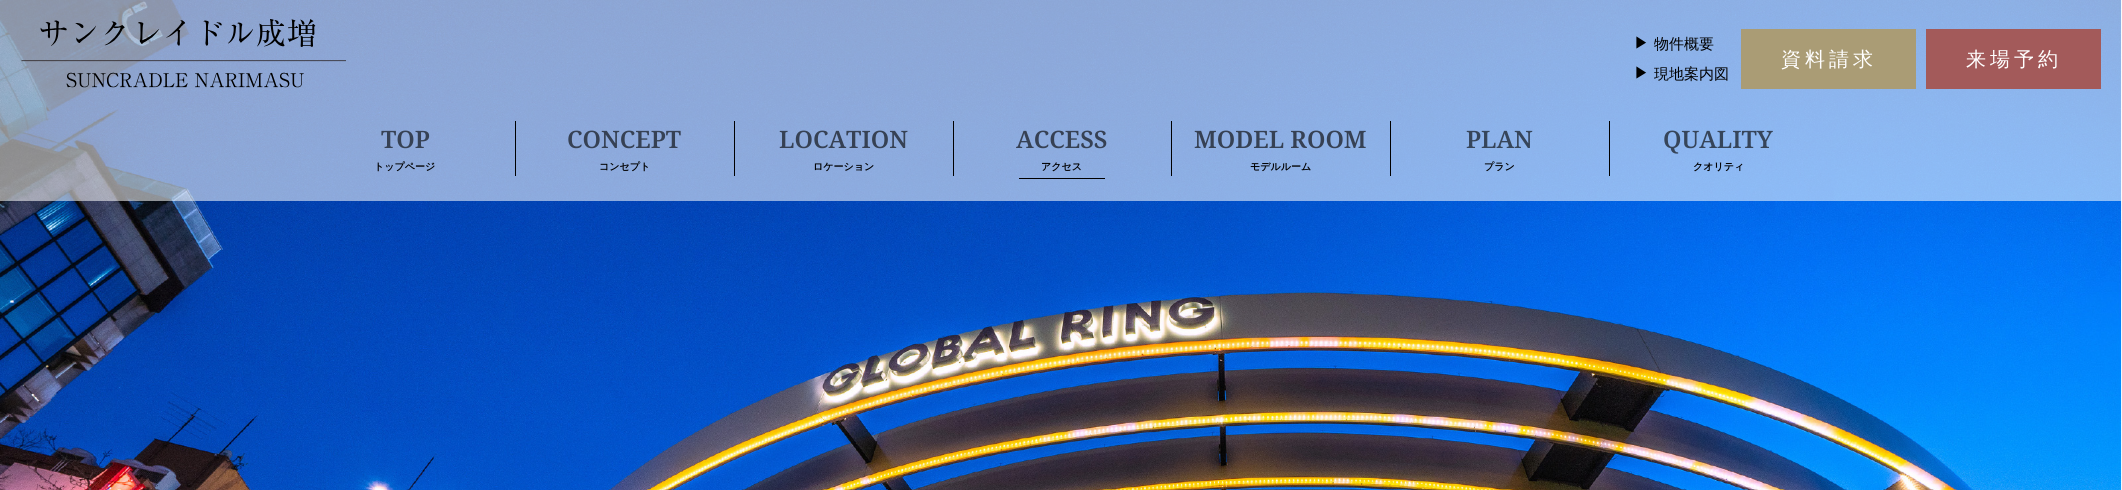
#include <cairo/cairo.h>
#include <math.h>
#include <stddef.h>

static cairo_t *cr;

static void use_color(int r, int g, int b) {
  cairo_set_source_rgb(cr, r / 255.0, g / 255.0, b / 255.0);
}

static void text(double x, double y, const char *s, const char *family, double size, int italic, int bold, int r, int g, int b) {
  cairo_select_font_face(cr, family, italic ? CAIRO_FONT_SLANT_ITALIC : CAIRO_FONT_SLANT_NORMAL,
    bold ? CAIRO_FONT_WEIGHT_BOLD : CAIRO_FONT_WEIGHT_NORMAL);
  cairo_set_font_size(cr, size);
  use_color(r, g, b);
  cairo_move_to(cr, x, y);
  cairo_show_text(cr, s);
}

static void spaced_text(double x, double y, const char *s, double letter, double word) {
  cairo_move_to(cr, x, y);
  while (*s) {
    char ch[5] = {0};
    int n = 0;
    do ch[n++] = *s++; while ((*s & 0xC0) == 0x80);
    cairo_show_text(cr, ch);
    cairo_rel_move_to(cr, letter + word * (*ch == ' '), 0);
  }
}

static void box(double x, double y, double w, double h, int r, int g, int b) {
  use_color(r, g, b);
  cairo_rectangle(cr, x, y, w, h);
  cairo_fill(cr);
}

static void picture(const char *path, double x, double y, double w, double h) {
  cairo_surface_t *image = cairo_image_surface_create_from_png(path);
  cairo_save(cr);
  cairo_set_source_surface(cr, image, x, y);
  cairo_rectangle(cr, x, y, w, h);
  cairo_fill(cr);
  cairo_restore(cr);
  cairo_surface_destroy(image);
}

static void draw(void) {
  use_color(255, 255, 255);
  cairo_paint(cr);
  picture("img_01.png", 0, 0, 2122, 490);
  cairo_set_source_rgba(cr, 1, 1, 1, 0.55);
  cairo_rectangle(cr, 0, 0, 2122, 201);
  cairo_fill(cr);
  picture("img_02.png", 21, 19, 325, 69);
  box(1741, 29, 175, 60, 170, 156, 117);
  box(1926, 29, 175, 60, 163, 90, 90);
  box(515, 121, 1, 55, 0, 0, 0);
  box(734, 121, 1, 55, 0, 0, 0);
  box(953, 121, 1, 55, 0, 0, 0);
  box(1019, 178, 86, 1, 0, 0, 0);
  box(1171, 121, 1, 55, 0, 0, 0);
  box(1390, 121, 1, 55, 0, 0, 0);
  box(1609, 121, 1, 55, 0, 0, 0);
  text(1634, 48, "▶", "WenQuanYi Zen Hei Medium", 15, 0, 0, 0, 0, 0);
  text(1654, 49, "物件概要", "WenQuanYi Zen Hei Medium", 15, 0, 0, 0, 0, 0);
  text(1634, 78, "▶", "WenQuanYi Zen Hei Medium", 15, 0, 0, 0, 0, 0);
  text(1654, 79, "現地案内図", "WenQuanYi Zen Hei Medium", 15, 0, 0, 0, 0, 0);
  cairo_set_font_size(cr, 20);
  use_color(255, 255, 255);
  spaced_text(1781, 66, "資料請求", 4, 0);
  spaced_text(1966, 66, "来場予約", 4, 0);
  text(381, 148, "TOP", "Noto Serif SemiBold", 24, 0, 0, 54, 65, 84);
  text(374, 170, "トップページ", "WenQuanYi Zen Hei", 10, 0, 1, 0, 0, 0);
  text(567, 148, "CONCEPT", "Noto Serif SemiBold", 24, 0, 0, 54, 65, 84);
  text(599, 170, "コンセプト", "WenQuanYi Zen Hei", 10, 0, 1, 0, 0, 0);
  text(779, 148, "LOCATION", "Noto Serif SemiBold", 24, 0, 0, 54, 65, 84);
  text(813, 170, "ロケーション", "WenQuanYi Zen Hei", 10, 0, 1, 0, 0, 0);
  text(1016, 148, "ACCESS", "Noto Serif SemiBold", 24, 0, 0, 54, 65, 84);
  text(1041, 170, "アクセス", "WenQuanYi Zen Hei", 10, 0, 1, 0, 0, 0);
  text(1194, 148, "MODEL ROOM", "Noto Serif SemiBold", 24, 0, 0, 54, 65, 84);
  text(1250, 170, "モデルルーム", "WenQuanYi Zen Hei", 10, 0, 1, 0, 0, 0);
  text(1466, 148, "PLAN", "Noto Serif SemiBold", 24, 0, 0, 54, 69, 90);
  text(1484, 170, "プラン", "WenQuanYi Zen Hei", 10, 0, 1, 0, 0, 0);
  text(1663, 148, "QUALITY", "Noto Serif SemiBold", 24, 0, 0, 54, 69, 90);
  text(1693, 170, "クオリティ", "WenQuanYi Zen Hei", 10, 0, 1, 0, 0, 0);
}

int main(void) {
  cairo_surface_t *surface = cairo_image_surface_create(CAIRO_FORMAT_RGB24, 2122, 490);
  cr = cairo_create(surface);
  cairo_font_options_t *options = cairo_font_options_create();
  cairo_font_options_set_hint_metrics(options, CAIRO_HINT_METRICS_OFF);
  cairo_font_options_set_hint_style(options, CAIRO_HINT_STYLE_NONE);
  cairo_set_font_options(cr, options);
  cairo_set_miter_limit(cr, 4);
  draw();
  cairo_surface_write_to_png(surface, "out.png");
  cairo_font_options_destroy(options);
  cairo_destroy(cr);
  cairo_surface_destroy(surface);
  return 0;
}
